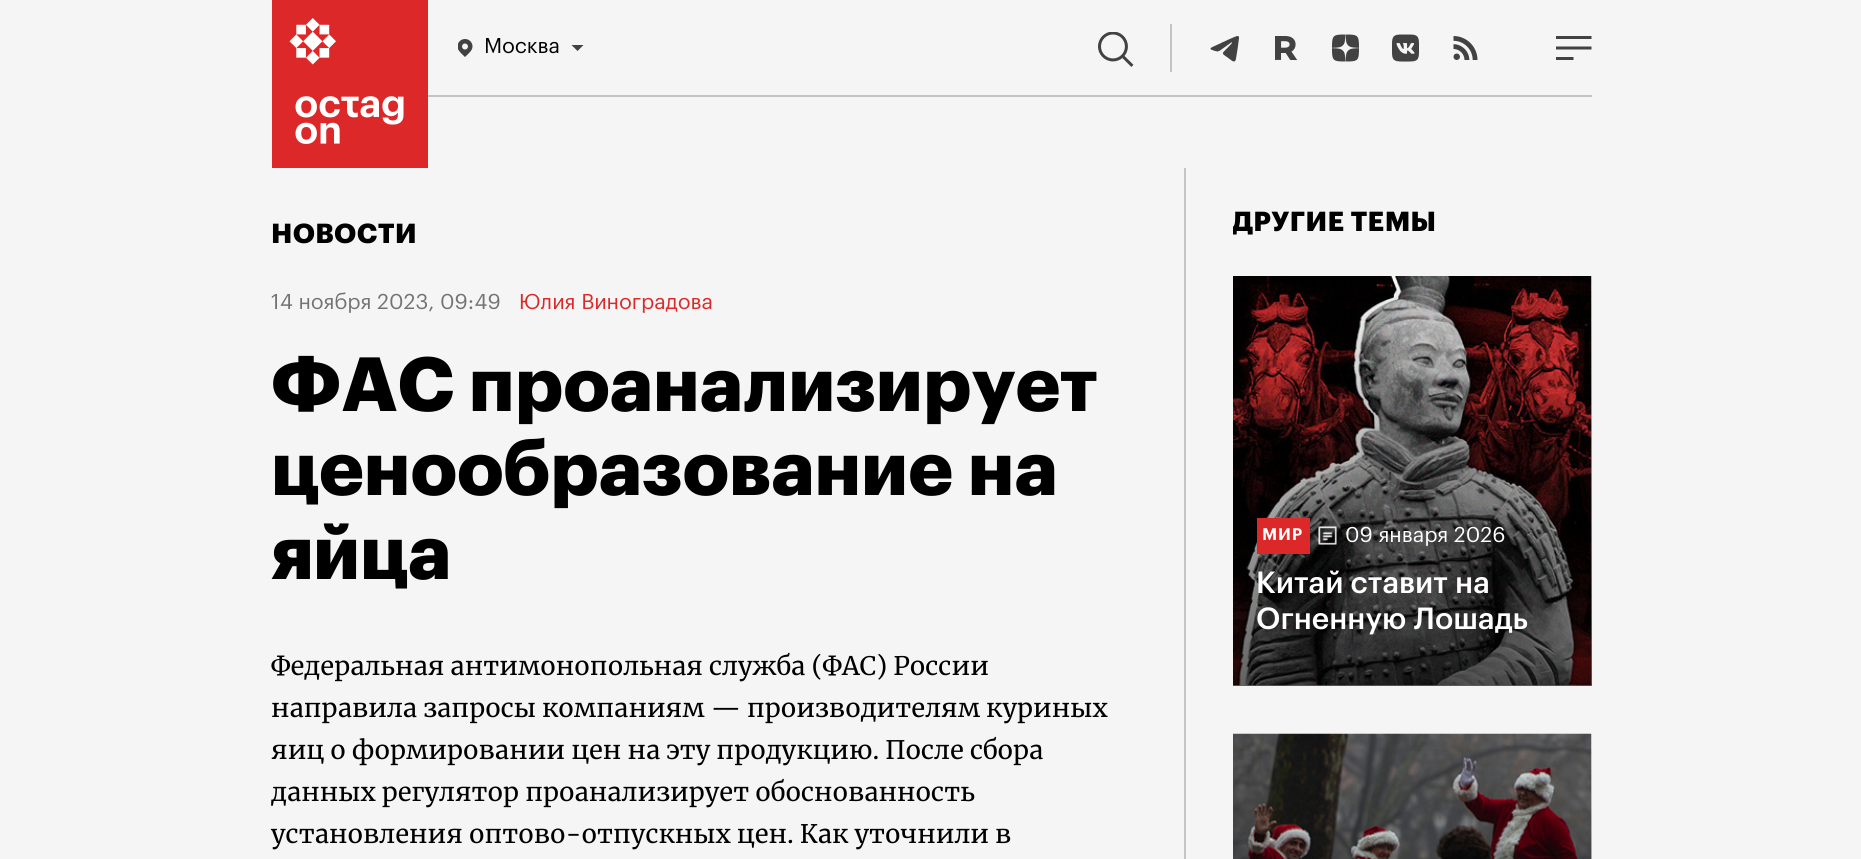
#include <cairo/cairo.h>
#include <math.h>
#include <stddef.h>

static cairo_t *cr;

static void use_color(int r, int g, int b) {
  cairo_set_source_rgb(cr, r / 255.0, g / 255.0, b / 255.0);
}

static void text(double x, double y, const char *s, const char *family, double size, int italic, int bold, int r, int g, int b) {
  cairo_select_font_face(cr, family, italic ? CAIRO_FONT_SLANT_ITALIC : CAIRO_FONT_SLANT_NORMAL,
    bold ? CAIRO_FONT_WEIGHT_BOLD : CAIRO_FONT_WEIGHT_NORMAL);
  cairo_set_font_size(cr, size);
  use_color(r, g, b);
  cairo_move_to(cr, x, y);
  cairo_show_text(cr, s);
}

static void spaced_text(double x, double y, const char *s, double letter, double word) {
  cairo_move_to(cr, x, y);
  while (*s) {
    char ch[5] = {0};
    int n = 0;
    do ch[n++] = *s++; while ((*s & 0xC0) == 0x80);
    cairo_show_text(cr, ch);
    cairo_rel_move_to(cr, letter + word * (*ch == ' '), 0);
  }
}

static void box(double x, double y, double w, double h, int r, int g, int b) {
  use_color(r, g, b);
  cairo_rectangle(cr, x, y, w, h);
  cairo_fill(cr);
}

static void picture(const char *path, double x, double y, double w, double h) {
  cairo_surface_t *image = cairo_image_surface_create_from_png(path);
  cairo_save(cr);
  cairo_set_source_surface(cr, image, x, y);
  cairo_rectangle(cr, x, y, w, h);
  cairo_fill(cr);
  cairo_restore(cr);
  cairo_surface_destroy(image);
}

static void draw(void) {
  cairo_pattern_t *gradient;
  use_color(245, 245, 245);
  cairo_paint(cr);
  box(428, 95, 1164, 2, 196, 196, 196);
  picture("img_01.png", 272, 0, 156, 168);
  picture("img_02.png", 458, 39, 15, 18);
  use_color(66, 66, 66);
  cairo_new_path(cr);
  cairo_move_to(cr, 577.5, 51);
  cairo_line_to(cr, 571.5, 45);
  cairo_line_to(cr, 583.5, 45);
  cairo_close_path(cr);
  cairo_fill(cr);
  box(1170, 24, 2, 48, 196, 196, 196);
  picture("img_03.png", 1098, 32, 36, 35);
  picture("img_04.png", 1210, 36, 29, 26);
  picture("img_05.png", 1275, 36, 23, 24);
  picture("img_06.png", 1332, 34, 27, 28);
  picture("img_07.png", 1392, 34, 27, 28);
  picture("img_08.png", 1453, 36, 25, 24);
  cairo_save(cr);
  cairo_rectangle(cr, 1556, 36, 36, 24);
  cairo_clip(cr);
  use_color(66, 66, 66);
  cairo_set_fill_rule(cr, CAIRO_FILL_RULE_EVEN_ODD);
  cairo_new_path(cr);
  cairo_move_to(cr, 1591.5, 39);
  cairo_line_to(cr, 1555.5, 39);
  cairo_line_to(cr, 1555.5, 36);
  cairo_line_to(cr, 1591.5, 36);
  cairo_close_path(cr);
  cairo_move_to(cr, 1591.5, 49.5);
  cairo_line_to(cr, 1555.5, 49.5);
  cairo_line_to(cr, 1555.5, 46.5);
  cairo_line_to(cr, 1591.5, 46.5);
  cairo_close_path(cr);
  cairo_move_to(cr, 1555.5, 60);
  cairo_line_to(cr, 1573.5, 60);
  cairo_line_to(cr, 1573.5, 57);
  cairo_line_to(cr, 1555.5, 57);
  cairo_close_path(cr);
  cairo_fill(cr);
  cairo_restore(cr);
  box(1184, 168, 2, 691, 196, 196, 196);
  picture("img_09.png", 1233, 276, 359, 410);
  gradient = cairo_pattern_create_linear(1412, 276, 1412, 686);
  cairo_pattern_add_color_stop_rgba(gradient, 0, 0, 0, 0, 0);
  cairo_pattern_add_color_stop_rgba(gradient, 1, 0, 0, 0, 0.6);
  cairo_set_source(cr, gradient);
  cairo_pattern_destroy(gradient);
  cairo_rectangle(cr, 1233, 291, 359, 395);
  cairo_fill(cr);
  box(1257, 518, 53, 36, 220, 40, 40);
  picture("img_10.png", 1318, 526, 19, 19);
  picture("img_11.png", 1233, 733, 359, 126);
  gradient = cairo_pattern_create_linear(1412, 734, 1412, 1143);
  cairo_pattern_add_color_stop_rgba(gradient, 0, 0, 0, 0, 0);
  cairo_pattern_add_color_stop_rgba(gradient, 1, 0, 0, 0, 0.6);
  cairo_set_source(cr, gradient);
  cairo_pattern_destroy(gradient);
  cairo_rectangle(cr, 1233, 749, 359, 110);
  cairo_fill(cr);
  text(484, 53, "Москва", "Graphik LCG", 21, 0, 0, 0, 0, 0);
  cairo_select_font_face(cr, "Graphik LCG", CAIRO_FONT_SLANT_NORMAL, CAIRO_FONT_WEIGHT_BOLD);
  cairo_set_font_size(cr, 27);
  spaced_text(271, 243, "НОВОСТИ", 0.5, 0);
  text(271, 309, "14 ноября 2023, 09:49", "Graphik LCG", 21, 0, 0, 115, 115, 115);
  text(519, 309, "Юлия Виноградова", "Graphik LCG", 21, 0, 0, 220, 40, 40);
  text(271, 411, "ФАС проанализирует", "Graphik LCG", 75, 0, 1, 0, 0, 0);
  text(271, 495, "ценообразование на", "Graphik LCG", 75, 0, 1, 0, 0, 0);
  text(271, 579, "яйца", "Graphik LCG", 75, 0, 1, 0, 0, 0);
  text(271, 675, "Федеральная антимонопольная служба (ФАС) России", "Merriweather", 25.5, 0, 0, 0, 0, 0);
  text(271, 717, "направила запросы компаниям — производителям куриных", "Merriweather", 25.5, 0, 0, 0, 0, 0);
  text(271, 759, "яиц о формировании цен на эту продукцию. После сбора", "Merriweather", 25.5, 0, 0, 0, 0, 0);
  text(271, 801, "данных регулятор проанализирует обоснованность", "Merriweather", 25.5, 0, 0, 0, 0, 0);
  text(271, 843, "установления оптово-отпускных цен. Как уточнили в", "Merriweather", 25.5, 0, 0, 0, 0, 0);
  cairo_save(cr);
  cairo_rectangle(cr, 1233, 168, 359, 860);
  cairo_clip(cr);
  cairo_select_font_face(cr, "Graphik LCG", CAIRO_FONT_SLANT_NORMAL, CAIRO_FONT_WEIGHT_BOLD);
  cairo_set_font_size(cr, 27);
  spaced_text(1232, 231, "ДРУГИЕ ТЕМЫ", 0.5, 0);
  cairo_restore(cr);
  cairo_select_font_face(cr, "Graphik LCG SemiBold", CAIRO_FONT_SLANT_NORMAL, CAIRO_FONT_WEIGHT_NORMAL);
  cairo_set_font_size(cr, 16.5);
  use_color(255, 255, 255);
  spaced_text(1262, 540, "МИР", 1, 0);
  text(1345, 542, "09 января 2026", "Graphik LCG", 21, 0, 0, 255, 255, 255);
  text(1256, 593, "Китай ставит на", "Graphik LCG Medium", 30, 0, 0, 255, 255, 255);
  text(1256, 629, "Огненную Лошадь", "Graphik LCG Medium", 30, 0, 0, 255, 255, 255);
}

int main(void) {
  cairo_surface_t *surface = cairo_image_surface_create(CAIRO_FORMAT_RGB24, 1861, 859);
  cr = cairo_create(surface);
  cairo_font_options_t *options = cairo_font_options_create();
  cairo_font_options_set_hint_metrics(options, CAIRO_HINT_METRICS_OFF);
  cairo_font_options_set_hint_style(options, CAIRO_HINT_STYLE_NONE);
  cairo_set_font_options(cr, options);
  cairo_set_miter_limit(cr, 4);
  draw();
  cairo_surface_write_to_png(surface, "out.png");
  cairo_font_options_destroy(options);
  cairo_destroy(cr);
  cairo_surface_destroy(surface);
  return 0;
}
